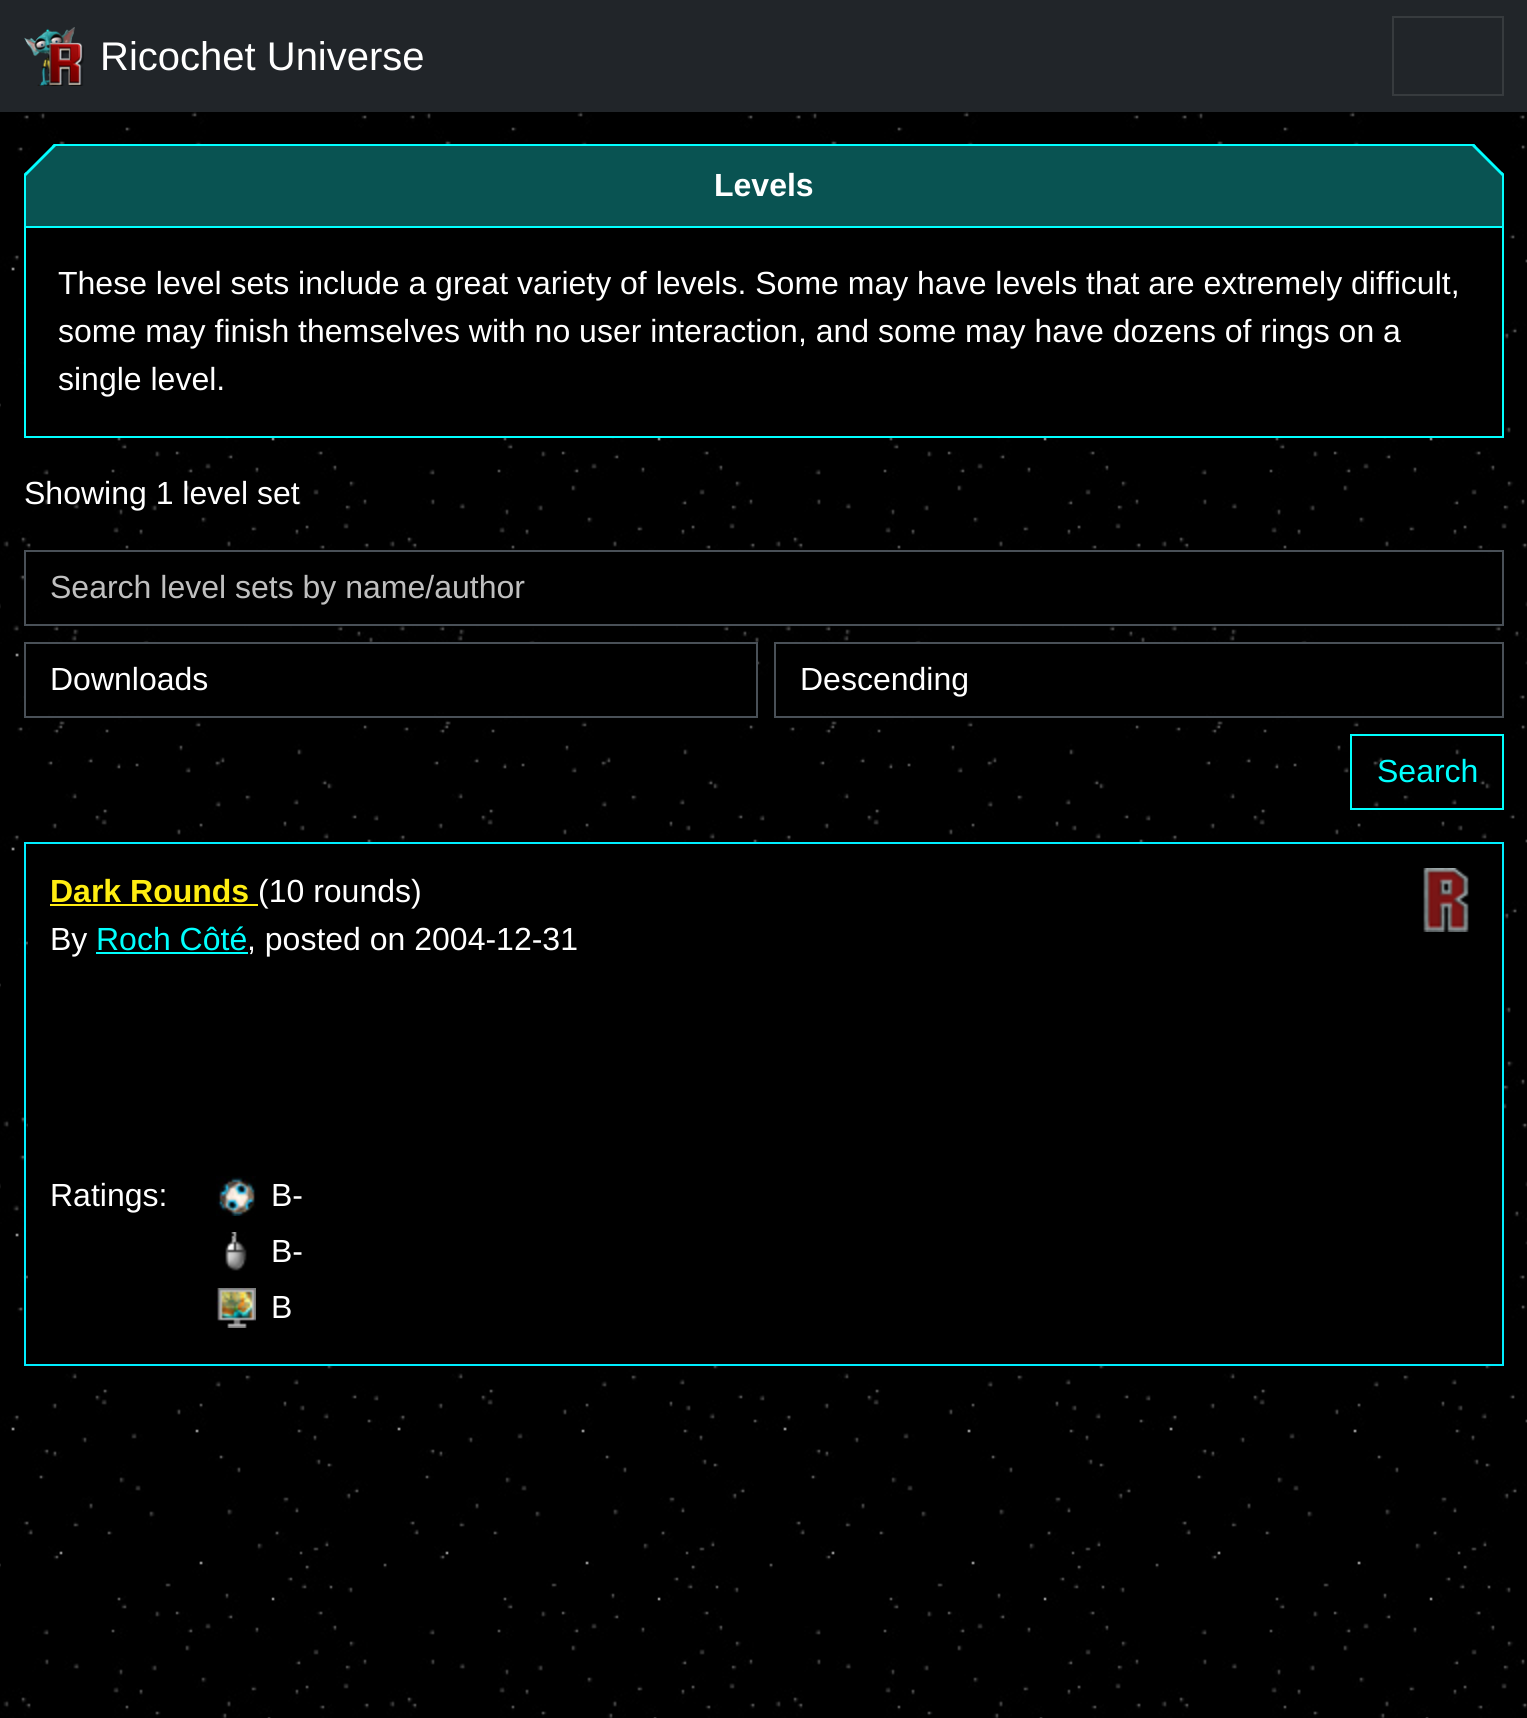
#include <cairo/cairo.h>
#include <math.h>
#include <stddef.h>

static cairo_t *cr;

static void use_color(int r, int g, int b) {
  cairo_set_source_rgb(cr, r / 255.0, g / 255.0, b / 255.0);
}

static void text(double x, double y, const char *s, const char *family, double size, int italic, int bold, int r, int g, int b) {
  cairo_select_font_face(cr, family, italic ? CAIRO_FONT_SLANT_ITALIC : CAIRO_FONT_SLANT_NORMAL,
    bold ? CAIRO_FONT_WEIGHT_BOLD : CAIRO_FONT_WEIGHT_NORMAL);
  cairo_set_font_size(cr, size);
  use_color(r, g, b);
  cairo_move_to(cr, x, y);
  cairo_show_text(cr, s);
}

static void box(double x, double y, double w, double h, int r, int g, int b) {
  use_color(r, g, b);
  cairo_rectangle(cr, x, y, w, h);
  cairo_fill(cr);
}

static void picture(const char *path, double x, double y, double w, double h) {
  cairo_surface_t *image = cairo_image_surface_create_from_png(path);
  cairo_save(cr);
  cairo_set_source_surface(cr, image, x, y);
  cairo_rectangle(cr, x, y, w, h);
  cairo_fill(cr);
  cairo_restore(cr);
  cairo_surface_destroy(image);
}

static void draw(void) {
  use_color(255, 255, 255);
  cairo_paint(cr);
  picture("img_01.png", 0, 112, 1527, 1606);
  box(0, 0, 1527, 112, 33, 37, 41);
  picture("img_02.png", 24, 27, 60, 59);
  cairo_rectangle(cr, 1393, 17, 110, 78);
  use_color(55, 59, 62);
  cairo_stroke(cr);
  use_color(1, 255, 255);
  cairo_new_path(cr);
  cairo_move_to(cr, 24, 174);
  cairo_line_to(cr, 24, 438);
  cairo_line_to(cr, 1504, 438);
  cairo_line_to(cr, 1504, 174);
  cairo_line_to(cr, 1474, 144);
  cairo_line_to(cr, 54, 144);
  cairo_close_path(cr);
  cairo_fill(cr);
  cairo_set_fill_rule(cr, CAIRO_FILL_RULE_EVEN_ODD);
  cairo_new_path(cr);
  cairo_move_to(cr, 24, 174);
  cairo_line_to(cr, 24, 438);
  cairo_line_to(cr, 1504, 438);
  cairo_line_to(cr, 1504, 174);
  cairo_line_to(cr, 1502, 172);
  cairo_line_to(cr, 1502, 436);
  cairo_line_to(cr, 26, 436);
  cairo_line_to(cr, 26, 172);
  cairo_close_path(cr);
  cairo_move_to(cr, 52, 146);
  cairo_line_to(cr, 1476, 146);
  cairo_line_to(cr, 1474, 144);
  cairo_line_to(cr, 54, 144);
  cairo_close_path(cr);
  cairo_fill(cr);
  use_color(9, 83, 82);
  cairo_set_fill_rule(cr, CAIRO_FILL_RULE_WINDING);
  cairo_new_path(cr);
  cairo_move_to(cr, 26, 176);
  cairo_line_to(cr, 26, 228);
  cairo_line_to(cr, 1502, 228);
  cairo_line_to(cr, 1502, 176);
  cairo_line_to(cr, 1472, 146);
  cairo_line_to(cr, 56, 146);
  cairo_close_path(cr);
  cairo_fill(cr);
  box(26, 226, 1476, 2, 1, 255, 255);
  box(26, 228, 1476, 208, 0, 0, 0);
  box(41, 552, 1441, 72, 0, 0, 0);
  cairo_rectangle(cr, 25, 551, 1478, 74);
  use_color(73, 80, 87);
  cairo_stroke(cr);
  box(26, 644, 730, 68, 0, 0, 0);
  cairo_rectangle(cr, 25, 643, 732, 74);
  use_color(73, 80, 87);
  cairo_stroke(cr);
  box(787, 644, 660, 68, 0, 0, 0);
  cairo_rectangle(cr, 775, 643, 728, 74);
  use_color(73, 80, 87);
  cairo_stroke(cr);
  cairo_rectangle(cr, 1351, 735, 152, 74);
  use_color(0, 255, 254);
  cairo_stroke(cr);
  box(24, 842, 1480, 2, 0, 238, 255);
  box(24, 1364, 1480, 2, 0, 238, 255);
  box(28, 844, 1474, 520, 0, 0, 0);
  box(1502, 842, 2, 524, 0, 238, 255);
  box(24, 842, 2, 524, 0, 238, 255);
  box(50, 904, 208, 2, 255, 237, 17);
  picture("img_03.png", 1423, 868, 46, 64);
  box(96, 952, 152, 2, 0, 255, 254);
  picture("img_04.png", 216, 1176, 40, 40);
  picture("img_05.png", 225, 1232, 22, 39);
  picture("img_06.png", 216, 1288, 40, 40);
  text(100, 70, "Ricochet Universe", "Liberation Sans", 40, 0, 0, 255, 255, 255);
  text(714, 196, "Levels", "Liberation Sans", 32, 0, 1, 255, 255, 255);
  text(58, 294, "These level sets include a great variety of levels. Some may have levels that are extremely difficult,", "Liberation Sans", 32, 0, 0, 255, 255, 255);
  text(58, 342, "some may finish themselves with no user interaction, and some may have dozens of rings on a", "Liberation Sans", 32, 0, 0, 255, 255, 255);
  text(58, 390, "single level.", "Liberation Sans", 32, 0, 0, 255, 255, 255);
  text(24, 504, "Showing 1 level set", "Liberation Sans", 32, 0, 0, 255, 255, 255);
  text(50, 598, "Search level sets by name/author", "Liberation Sans", 32, 0, 0, 191, 191, 191);
  text(50, 690, "Downloads", "Liberation Sans", 32, 0, 0, 255, 255, 255);
  text(800, 690, "Descending", "Liberation Sans", 32, 0, 0, 255, 255, 255);
  text(1377, 782, "Search", "Liberation Sans", 32, 0, 0, 0, 255, 254);
  text(50, 902, "Dark Rounds", "Liberation Sans", 32, 0, 1, 255, 237, 17);
  text(258, 902, "(10 rounds)", "Liberation Sans", 32, 0, 0, 255, 255, 255);
  text(50, 950, "By", "Liberation Sans", 32, 0, 0, 255, 255, 255);
  text(96, 950, "Roch Côté", "Liberation Sans", 32, 0, 0, 0, 255, 254);
  text(247, 950, ", posted on 2004-12-31", "Liberation Sans", 32, 0, 0, 255, 255, 255);
  text(50, 1206, "Ratings:", "Liberation Sans", 32, 0, 0, 255, 255, 255);
  text(271, 1206, "B-", "Liberation Sans", 32, 0, 0, 255, 255, 255);
  text(271, 1262, "B-", "Liberation Sans", 32, 0, 0, 255, 255, 255);
  text(271, 1318, "B", "Liberation Sans", 32, 0, 0, 255, 255, 255);
}

int main(void) {
  cairo_surface_t *surface = cairo_image_surface_create(CAIRO_FORMAT_RGB24, 1527, 1718);
  cr = cairo_create(surface);
  cairo_font_options_t *options = cairo_font_options_create();
  cairo_font_options_set_hint_metrics(options, CAIRO_HINT_METRICS_OFF);
  cairo_font_options_set_hint_style(options, CAIRO_HINT_STYLE_NONE);
  cairo_set_font_options(cr, options);
  cairo_set_miter_limit(cr, 4);
  draw();
  cairo_surface_write_to_png(surface, "out.png");
  cairo_font_options_destroy(options);
  cairo_destroy(cr);
  cairo_surface_destroy(surface);
  return 0;
}
